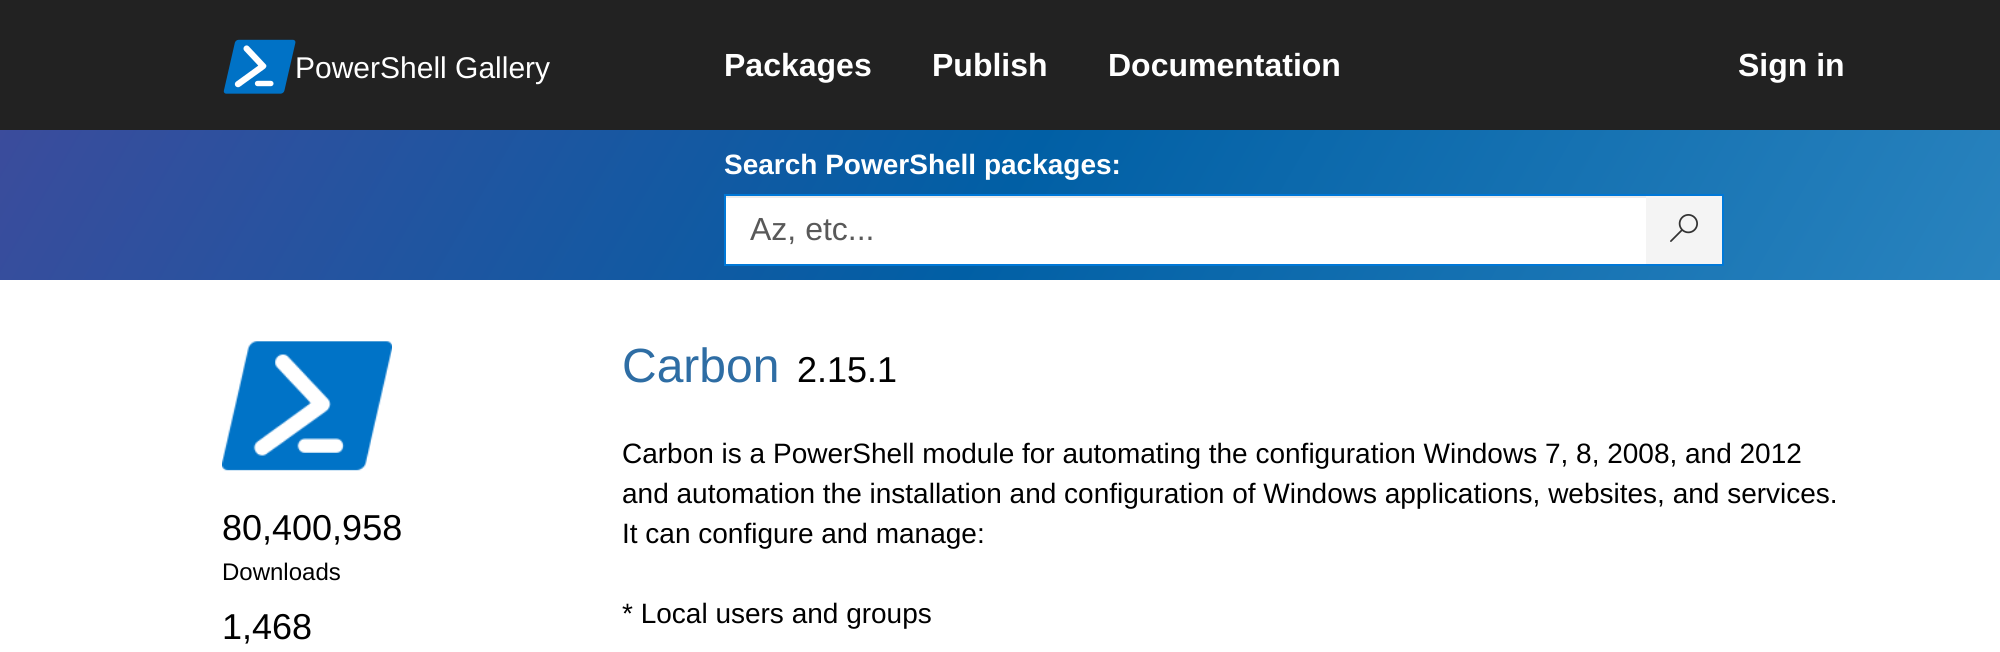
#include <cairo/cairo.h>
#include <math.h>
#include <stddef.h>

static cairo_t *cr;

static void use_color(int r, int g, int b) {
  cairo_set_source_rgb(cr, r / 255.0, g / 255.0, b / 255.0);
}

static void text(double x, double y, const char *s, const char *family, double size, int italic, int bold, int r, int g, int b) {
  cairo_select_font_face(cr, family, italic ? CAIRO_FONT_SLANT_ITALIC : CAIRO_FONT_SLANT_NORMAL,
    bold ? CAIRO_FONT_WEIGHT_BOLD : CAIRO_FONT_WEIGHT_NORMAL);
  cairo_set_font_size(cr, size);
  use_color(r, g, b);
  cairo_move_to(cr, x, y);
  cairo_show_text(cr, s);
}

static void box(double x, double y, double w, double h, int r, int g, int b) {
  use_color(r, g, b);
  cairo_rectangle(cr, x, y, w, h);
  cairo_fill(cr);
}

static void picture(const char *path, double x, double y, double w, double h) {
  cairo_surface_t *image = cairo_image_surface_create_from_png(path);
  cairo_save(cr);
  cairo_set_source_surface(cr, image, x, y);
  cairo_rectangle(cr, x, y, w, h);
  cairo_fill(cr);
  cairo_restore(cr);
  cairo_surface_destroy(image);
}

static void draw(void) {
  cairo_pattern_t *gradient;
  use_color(255, 255, 255);
  cairo_paint(cr);
  box(0, 0, 2000, 130, 34, 34, 34);
  picture("img_01.png", 223, 39, 73, 55);
  gradient = cairo_pattern_create_linear(218, -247, 1782, 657);
  cairo_pattern_add_color_stop_rgba(gradient, 0, 0.231, 0.298, 0.612, 1);
  cairo_pattern_add_color_stop_rgba(gradient, 0.5, 0.004, 0.373, 0.647, 1);
  cairo_pattern_add_color_stop_rgba(gradient, 1, 0.161, 0.514, 0.745, 1);
  cairo_set_source(cr, gradient);
  cairo_pattern_destroy(gradient);
  cairo_rectangle(cr, 0, 130, 2000, 150);
  cairo_fill(cr);
  box(726, 198, 920, 66, 255, 255, 255);
  box(726, 196, 922, 2, 236, 236, 236);
  box(724, 194, 1000, 2, 0, 120, 215);
  box(724, 264, 924, 2, 0, 120, 215);
  box(724, 194, 2, 72, 0, 120, 215);
  box(1646, 196, 76, 68, 244, 244, 244);
  box(1722, 194, 2, 72, 0, 120, 215);
  box(1646, 264, 78, 2, 0, 120, 215);
  picture("img_02.png", 1670, 214, 28, 28);
  picture("img_03.png", 222, 341, 170, 130);
  text(295, 78, "PowerShell Gallery", "Liberation Sans", 30, 0, 0, 255, 255, 255);
  text(724, 76, "Packages", "Liberation Sans", 32, 0, 1, 255, 255, 255);
  text(932, 76, "Publish", "Liberation Sans", 32, 0, 1, 255, 255, 255);
  text(1108, 76, "Documentation", "Liberation Sans", 32, 0, 1, 255, 255, 255);
  text(1738, 76, "Sign in", "Liberation Sans", 32, 0, 1, 255, 255, 255);
  text(724, 174, "Search PowerShell packages:", "Liberation Sans", 28, 0, 1, 255, 255, 255);
  text(750, 240, "Az, etc...", "Liberation Sans", 32, 0, 0, 89, 89, 89);
  text(222, 540, "80,400,958", "Liberation Sans", 36, 0, 0, 0, 0, 0);
  text(222, 580, "Downloads", "Liberation Sans", 24, 0, 0, 0, 0, 0);
  text(222, 639, "1,468", "Liberation Sans", 36, 0, 0, 0, 0, 0);
  text(622, 382, "Carbon", "Liberation Sans", 48, 0, 0, 46, 109, 164);
  text(797, 382, "2.15.1", "Liberation Sans", 36, 0, 0, 0, 0, 0);
  text(622, 463, "Carbon is a PowerShell module for automating the configuration Windows 7, 8, 2008, and 2012", "Liberation Sans", 28, 0, 0, 0, 0, 0);
  text(622, 503, "and automation the installation and configuration of Windows applications, websites, and services.", "Liberation Sans", 28, 0, 0, 0, 0, 0);
  text(622, 543, "It can configure and manage:", "Liberation Sans", 28, 0, 0, 0, 0, 0);
  text(622, 623, "* Local users and groups", "Liberation Sans", 28, 0, 0, 0, 0, 0);
}

int main(void) {
  cairo_surface_t *surface = cairo_image_surface_create(CAIRO_FORMAT_RGB24, 2000, 652);
  cr = cairo_create(surface);
  cairo_font_options_t *options = cairo_font_options_create();
  cairo_font_options_set_hint_metrics(options, CAIRO_HINT_METRICS_OFF);
  cairo_font_options_set_hint_style(options, CAIRO_HINT_STYLE_NONE);
  cairo_set_font_options(cr, options);
  cairo_set_miter_limit(cr, 4);
  draw();
  cairo_surface_write_to_png(surface, "out.png");
  cairo_font_options_destroy(options);
  cairo_destroy(cr);
  cairo_surface_destroy(surface);
  return 0;
}
